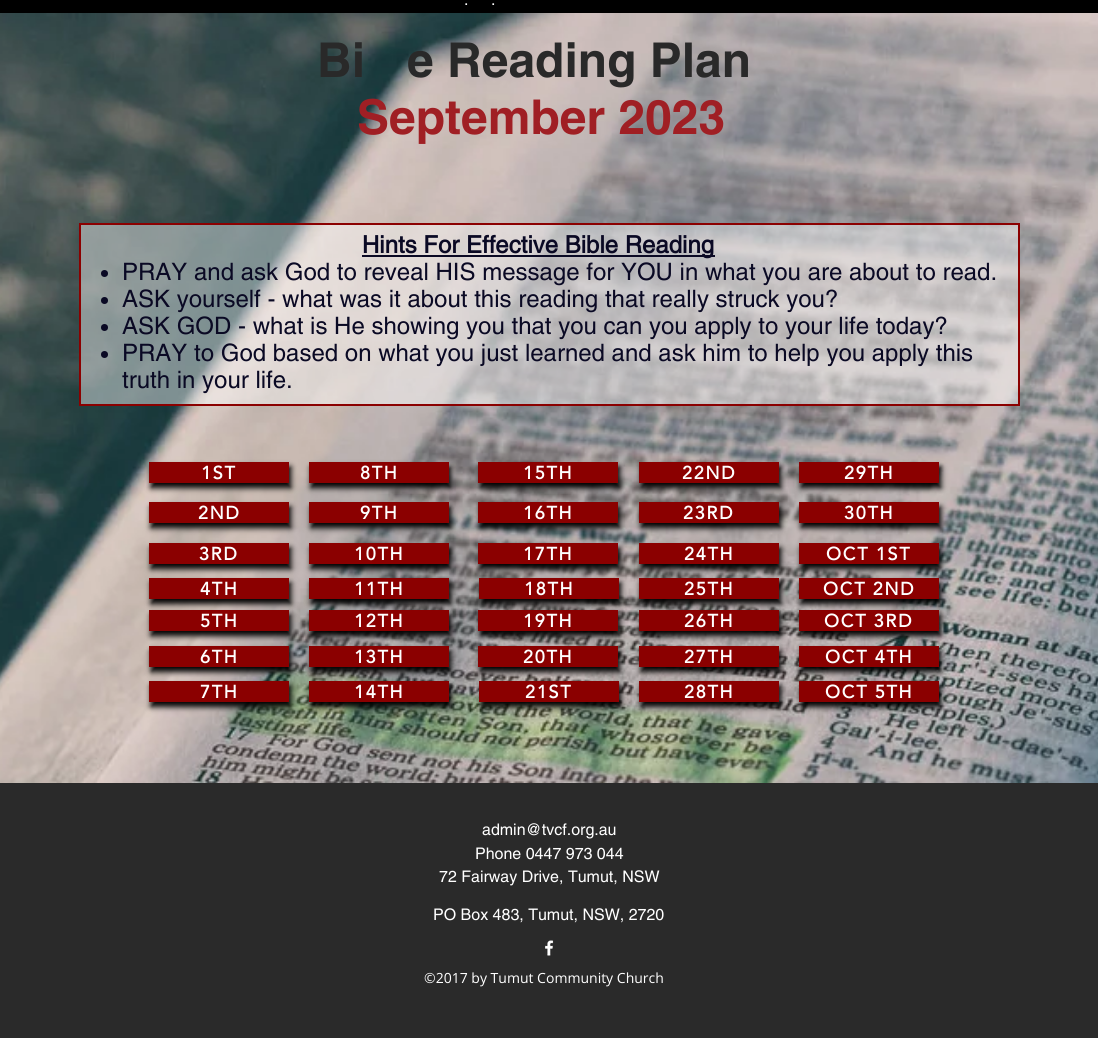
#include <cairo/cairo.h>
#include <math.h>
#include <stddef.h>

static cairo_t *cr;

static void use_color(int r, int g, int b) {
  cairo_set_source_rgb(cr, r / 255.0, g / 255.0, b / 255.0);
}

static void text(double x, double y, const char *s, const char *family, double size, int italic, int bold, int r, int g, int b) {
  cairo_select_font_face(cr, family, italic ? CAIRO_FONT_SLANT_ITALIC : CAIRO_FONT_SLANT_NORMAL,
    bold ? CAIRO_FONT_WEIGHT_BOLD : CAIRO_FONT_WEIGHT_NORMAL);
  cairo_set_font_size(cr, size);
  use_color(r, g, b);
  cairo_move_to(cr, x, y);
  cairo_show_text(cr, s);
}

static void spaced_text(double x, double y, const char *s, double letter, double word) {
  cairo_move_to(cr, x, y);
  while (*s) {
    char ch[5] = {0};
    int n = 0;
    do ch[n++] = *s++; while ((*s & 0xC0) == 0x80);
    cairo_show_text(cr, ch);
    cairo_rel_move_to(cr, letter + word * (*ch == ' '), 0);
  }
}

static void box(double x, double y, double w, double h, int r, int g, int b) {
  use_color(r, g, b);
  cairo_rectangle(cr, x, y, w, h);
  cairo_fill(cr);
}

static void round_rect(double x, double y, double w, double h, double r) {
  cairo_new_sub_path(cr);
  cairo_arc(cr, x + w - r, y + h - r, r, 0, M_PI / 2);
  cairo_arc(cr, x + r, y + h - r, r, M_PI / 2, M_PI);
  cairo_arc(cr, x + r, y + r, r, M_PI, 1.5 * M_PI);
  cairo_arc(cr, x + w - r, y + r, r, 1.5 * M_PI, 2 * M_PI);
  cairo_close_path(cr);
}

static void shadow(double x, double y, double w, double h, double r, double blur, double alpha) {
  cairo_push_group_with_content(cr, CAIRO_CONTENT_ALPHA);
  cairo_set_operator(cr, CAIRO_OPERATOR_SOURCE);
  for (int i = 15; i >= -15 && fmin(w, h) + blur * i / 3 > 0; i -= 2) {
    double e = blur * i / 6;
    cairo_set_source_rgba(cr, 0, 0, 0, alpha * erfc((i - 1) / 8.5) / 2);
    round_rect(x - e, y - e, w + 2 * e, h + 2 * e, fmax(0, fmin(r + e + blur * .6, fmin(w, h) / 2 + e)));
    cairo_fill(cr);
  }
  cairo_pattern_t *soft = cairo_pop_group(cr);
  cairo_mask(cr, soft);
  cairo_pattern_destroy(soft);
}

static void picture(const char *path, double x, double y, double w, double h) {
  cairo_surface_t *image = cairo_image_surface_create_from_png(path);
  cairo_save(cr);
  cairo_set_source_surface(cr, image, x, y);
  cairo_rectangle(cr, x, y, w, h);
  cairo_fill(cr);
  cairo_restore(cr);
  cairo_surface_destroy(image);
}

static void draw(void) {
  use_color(0, 0, 0);
  cairo_paint(cr);
  picture("img_01.png", 0, 13, 1098, 770);
  cairo_set_source_rgba(cr, 1, 1, 1, 0.44);
  cairo_rectangle(cr, 80, 224, 939, 181);
  cairo_fill_preserve(cr);
  use_color(139, 0, 0);
  cairo_stroke(cr);
  box(362, 255, 353, 2, 10, 9, 36);
  cairo_arc(cr, 104.5, 273.5, 3.5, 0, 2 * M_PI);
  cairo_fill(cr);
  cairo_arc(cr, 104.5, 300.5, 3.5, 0, 2 * M_PI);
  cairo_fill(cr);
  cairo_arc(cr, 104.5, 327.5, 3.5, 0, 2 * M_PI);
  cairo_fill(cr);
  cairo_arc(cr, 104.5, 354.5, 3.5, 0, 2 * M_PI);
  cairo_fill(cr);
  use_color(0, 0, 0);
  shadow(151, 467, 140, 21, 0, 3, 1);
  box(149, 462, 140, 21, 139, 0, 0);
  use_color(0, 0, 0);
  shadow(311, 467, 140, 21, 0, 3, 1);
  box(309, 462, 140, 21, 139, 0, 0);
  use_color(0, 0, 0);
  shadow(480, 467, 140, 21, 0, 3, 1);
  box(478, 462, 140, 21, 139, 0, 0);
  use_color(0, 0, 0);
  shadow(641, 467, 140, 21, 0, 3, 1);
  box(639, 462, 140, 21, 139, 0, 0);
  use_color(0, 0, 0);
  shadow(801, 467, 140, 21, 0, 3, 1);
  box(799, 462, 140, 21, 139, 0, 0);
  use_color(0, 0, 0);
  shadow(151, 507, 140, 21, 0, 3, 1);
  box(149, 502, 140, 21, 139, 0, 0);
  use_color(0, 0, 0);
  shadow(311, 507, 140, 21, 0, 3, 1);
  box(309, 502, 140, 21, 139, 0, 0);
  use_color(0, 0, 0);
  shadow(480, 507, 140, 21, 0, 3, 1);
  box(478, 502, 140, 21, 139, 0, 0);
  use_color(0, 0, 0);
  shadow(641, 507, 140, 21, 0, 3, 1);
  box(639, 502, 140, 21, 139, 0, 0);
  use_color(0, 0, 0);
  shadow(801, 507, 140, 21, 0, 3, 1);
  box(799, 502, 140, 21, 139, 0, 0);
  use_color(0, 0, 0);
  shadow(151, 548, 140, 21, 0, 3, 1);
  box(149, 543, 140, 21, 139, 0, 0);
  use_color(0, 0, 0);
  shadow(311, 548, 140, 21, 0, 3, 1);
  box(309, 543, 140, 21, 139, 0, 0);
  use_color(0, 0, 0);
  shadow(480, 548, 140, 21, 0, 3, 1);
  box(478, 543, 140, 21, 139, 0, 0);
  use_color(0, 0, 0);
  shadow(641, 583, 140, 21, 0, 3, 1);
  box(639, 578, 140, 21, 139, 0, 0);
  use_color(0, 0, 0);
  shadow(641, 548, 140, 21, 0, 3, 1);
  box(639, 543, 140, 21, 139, 0, 0);
  use_color(0, 0, 0);
  shadow(801, 583, 140, 21, 0, 3, 1);
  box(799, 578, 140, 21, 139, 0, 0);
  use_color(0, 0, 0);
  shadow(801, 548, 140, 21, 0, 3, 1);
  box(799, 543, 140, 21, 139, 0, 0);
  use_color(0, 0, 0);
  shadow(151, 583, 140, 21, 0, 3, 1);
  box(149, 578, 140, 21, 139, 0, 0);
  use_color(0, 0, 0);
  shadow(311, 583, 140, 21, 0, 3, 1);
  box(309, 578, 140, 21, 139, 0, 0);
  use_color(0, 0, 0);
  shadow(481, 583, 140, 21, 0, 3, 1);
  box(479, 578, 140, 21, 139, 0, 0);
  use_color(0, 0, 0);
  shadow(151, 615, 140, 21, 0, 3, 1);
  box(149, 610, 140, 21, 139, 0, 0);
  use_color(0, 0, 0);
  shadow(311, 615, 140, 21, 0, 3, 1);
  box(309, 610, 140, 21, 139, 0, 0);
  use_color(0, 0, 0);
  shadow(480, 615, 140, 21, 0, 3, 1);
  box(478, 610, 140, 21, 139, 0, 0);
  use_color(0, 0, 0);
  shadow(641, 615, 140, 21, 0, 3, 1);
  box(639, 610, 140, 21, 139, 0, 0);
  use_color(0, 0, 0);
  shadow(801, 615, 140, 21, 0, 3, 1);
  box(799, 610, 140, 21, 139, 0, 0);
  use_color(0, 0, 0);
  shadow(151, 651, 140, 21, 0, 3, 1);
  box(149, 646, 140, 21, 139, 0, 0);
  use_color(0, 0, 0);
  shadow(311, 651, 140, 21, 0, 3, 1);
  box(309, 646, 140, 21, 139, 0, 0);
  use_color(0, 0, 0);
  shadow(480, 651, 140, 21, 0, 3, 1);
  box(478, 646, 140, 21, 139, 0, 0);
  use_color(0, 0, 0);
  shadow(641, 651, 140, 21, 0, 3, 1);
  box(639, 646, 140, 21, 139, 0, 0);
  use_color(0, 0, 0);
  shadow(801, 651, 140, 21, 0, 3, 1);
  box(799, 646, 140, 21, 139, 0, 0);
  use_color(0, 0, 0);
  shadow(151, 686, 140, 21, 0, 3, 1);
  box(149, 681, 140, 21, 139, 0, 0);
  use_color(0, 0, 0);
  shadow(311, 686, 140, 21, 0, 3, 1);
  box(309, 681, 140, 21, 139, 0, 0);
  use_color(0, 0, 0);
  shadow(481, 686, 140, 21, 0, 3, 1);
  box(479, 681, 140, 21, 139, 0, 0);
  use_color(0, 0, 0);
  shadow(641, 686, 140, 21, 0, 3, 1);
  box(639, 681, 140, 21, 139, 0, 0);
  use_color(0, 0, 0);
  shadow(801, 686, 140, 21, 0, 3, 1);
  box(799, 681, 140, 21, 139, 0, 0);
  box(0, 783, 1098, 255, 42, 42, 42);
  picture("img_02.png", 545, 940, 9, 16);
  text(464, 5, ".", "helvetica", 16, 0, 0, 255, 255, 255);
  text(491, 5, ".", "helvetica", 16, 0, 0, 255, 255, 255);
  text(317, 77, "Bi", "helvetica", 48, 0, 1, 41, 41, 41);
  text(407, 77, "e Reading Plan", "helvetica", 48, 0, 1, 41, 41, 41);
  text(357, 134, "September 2023", "helvetica", 48, 0, 1, 160, 31, 36);
  text(362, 253, "Hints For Effective Bible Reading", "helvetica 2", 24, 0, 1, 10, 9, 36);
  text(122, 280, "PRAY and ask God to reveal HIS message for YOU in what you are about to read.", "helvetica", 24, 0, 0, 10, 9, 36);
  text(122, 307, "ASK yourself - what was it about this reading that really struck you?", "helvetica", 24, 0, 0, 10, 9, 36);
  text(122, 334, "ASK GOD - what is He showing you that you can you apply to your life today?", "helvetica", 24, 0, 0, 10, 9, 36);
  text(122, 361, "PRAY to God based on what you just learned and ask him to help you apply this", "helvetica", 24, 0, 0, 10, 9, 36);
  text(122, 388, "truth in your life.", "helvetica", 24, 0, 0, 10, 9, 36);
  cairo_select_font_face(cr, "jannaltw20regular", CAIRO_FONT_SLANT_NORMAL, CAIRO_FONT_WEIGHT_BOLD);
  cairo_set_font_size(cr, 18);
  use_color(255, 255, 255);
  spaced_text(201, 479, "1ST", 1.75, 0);
  spaced_text(360, 479, "8TH", 1.75, 0);
  spaced_text(523, 479, "15TH", 1.75, 0);
  spaced_text(682, 479, "22ND", 1.75, 0);
  spaced_text(844, 479, "29TH", 1.75, 0);
  spaced_text(198, 519, "2ND", 1.75, 0);
  spaced_text(360, 519, "9TH", 1.75, 0);
  spaced_text(523, 519, "16TH", 1.75, 0);
  spaced_text(683, 519, "23RD", 1.75, 0);
  spaced_text(844, 519, "30TH", 1.75, 0);
  spaced_text(199, 560, "3RD", 1.75, 0);
  spaced_text(354, 560, "10TH", 1.75, 0);
  spaced_text(523, 560, "17TH", 1.75, 0);
  spaced_text(684, 560, "24TH", 1.75, 0);
  spaced_text(826, 560, "OCT 1ST", 1.75, 0);
  spaced_text(200, 595, "4TH", 1.75, 0);
  spaced_text(354, 595, "11TH", 1.75, 0);
  spaced_text(524, 595, "18TH", 1.75, 0);
  spaced_text(684, 595, "25TH", 1.75, 0);
  spaced_text(823, 595, "OCT 2ND", 1.75, 0);
  spaced_text(200, 627, "5TH", 1.75, 0);
  spaced_text(354, 627, "12TH", 1.75, 0);
  spaced_text(523, 627, "19TH", 1.75, 0);
  spaced_text(684, 627, "26TH", 1.75, 0);
  spaced_text(824, 627, "OCT 3RD", 1.75, 0);
  spaced_text(200, 663, "6TH", 1.75, 0);
  spaced_text(354, 663, "13TH", 1.75, 0);
  spaced_text(523, 663, "20TH", 1.75, 0);
  spaced_text(684, 663, "27TH", 1.75, 0);
  spaced_text(825, 663, "OCT 4TH", 1.75, 0);
  spaced_text(200, 698, "7TH", 1.75, 0);
  spaced_text(354, 698, "14TH", 1.75, 0);
  spaced_text(525, 698, "21ST", 1.75, 0);
  spaced_text(684, 698, "28TH", 1.75, 0);
  spaced_text(825, 698, "OCT 5TH", 1.75, 0);
  text(482, 835, "admin@tvcf.org.au", "helvetica", 16, 0, 0, 255, 255, 255);
  text(475, 859, "Phone 0447 973 044", "helvetica", 16, 0, 0, 255, 255, 255);
  text(439, 882, "72 Fairway Drive, Tumut, NSW", "helvetica", 16, 0, 0, 255, 255, 255);
  text(433, 920, "PO Box 483, Tumut, NSW, 2720", "helvetica", 16, 0, 0, 255, 255, 255);
  text(424, 983, "©2017 by Tumut Community Church", "Open Sans", 14, 0, 0, 255, 255, 255);
}

int main(void) {
  cairo_surface_t *surface = cairo_image_surface_create(CAIRO_FORMAT_RGB24, 1098, 1038);
  cr = cairo_create(surface);
  cairo_font_options_t *options = cairo_font_options_create();
  cairo_font_options_set_hint_metrics(options, CAIRO_HINT_METRICS_OFF);
  cairo_font_options_set_hint_style(options, CAIRO_HINT_STYLE_NONE);
  cairo_set_font_options(cr, options);
  cairo_set_miter_limit(cr, 4);
  draw();
  cairo_surface_write_to_png(surface, "out.png");
  cairo_font_options_destroy(options);
  cairo_destroy(cr);
  cairo_surface_destroy(surface);
  return 0;
}
